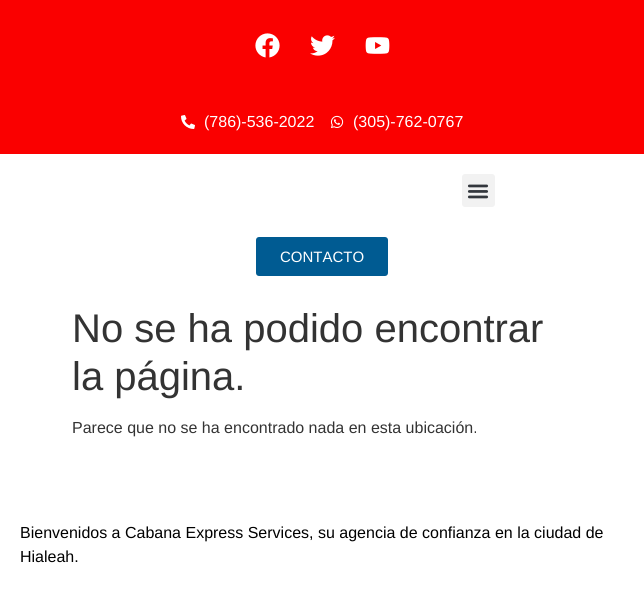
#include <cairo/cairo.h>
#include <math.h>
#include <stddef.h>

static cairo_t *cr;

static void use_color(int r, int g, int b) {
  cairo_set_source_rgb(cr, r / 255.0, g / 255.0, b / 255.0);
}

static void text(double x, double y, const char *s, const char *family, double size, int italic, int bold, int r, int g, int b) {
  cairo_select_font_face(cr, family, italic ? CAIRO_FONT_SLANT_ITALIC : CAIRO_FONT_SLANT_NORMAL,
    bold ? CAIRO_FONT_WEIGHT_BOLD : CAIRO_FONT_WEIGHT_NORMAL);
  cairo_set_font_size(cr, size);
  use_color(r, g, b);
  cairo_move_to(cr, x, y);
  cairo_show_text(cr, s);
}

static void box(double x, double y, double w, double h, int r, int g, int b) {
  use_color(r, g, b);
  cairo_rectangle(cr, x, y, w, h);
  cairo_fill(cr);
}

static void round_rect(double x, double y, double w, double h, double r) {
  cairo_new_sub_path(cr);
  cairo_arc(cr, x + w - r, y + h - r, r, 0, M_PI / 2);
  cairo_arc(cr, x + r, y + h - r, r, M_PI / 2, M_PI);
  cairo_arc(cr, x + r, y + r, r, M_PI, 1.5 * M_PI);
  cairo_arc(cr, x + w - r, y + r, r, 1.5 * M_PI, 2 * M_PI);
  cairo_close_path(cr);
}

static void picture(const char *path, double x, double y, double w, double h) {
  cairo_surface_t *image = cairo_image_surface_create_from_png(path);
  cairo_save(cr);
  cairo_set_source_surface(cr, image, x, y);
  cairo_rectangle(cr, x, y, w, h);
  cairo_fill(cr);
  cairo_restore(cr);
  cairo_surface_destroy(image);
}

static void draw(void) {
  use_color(255, 255, 255);
  cairo_paint(cr);
  box(0, 0, 644, 154, 250, 0, 0);
  picture("img_01.png", 255, 33, 25, 25);
  picture("img_02.png", 310, 35, 25, 21);
  picture("img_03.png", 365, 37, 25, 17);
  picture("img_04.png", 181, 115, 14, 14);
  picture("img_05.png", 330, 115, 14, 13);
  use_color(242, 242, 242);
  round_rect(462, 174, 33, 33, 3);
  cairo_fill(cr);
  picture("img_06.png", 467, 184, 22, 15);
  use_color(0, 91, 146);
  round_rect(256, 237, 132, 39, 3);
  cairo_fill(cr);
  text(204, 127, "(786)-536-2022", "Liberation Sans", 16, 0, 0, 255, 255, 255);
  text(353, 127, "(305)-762-0767", "Liberation Sans", 16, 0, 0, 255, 255, 255);
  text(280, 262, "CONTACTO", "Liberation Sans", 15, 0, 0, 255, 255, 255);
  text(72, 342, "No se ha podido encontrar", "Liberation Sans", 40, 0, 0, 51, 51, 51);
  text(72, 390, "la página.", "Liberation Sans", 40, 0, 0, 51, 51, 51);
  text(72, 433, "Parece que no se ha encontrado nada en esta ubicación.", "Liberation Sans", 16, 0, 0, 51, 51, 51);
  text(20, 538, "Bienvenidos a Cabana Express Services, su agencia de confianza en la ciudad de", "Liberation Sans", 16, 0, 0, 0, 0, 0);
  text(20, 562, "Hialeah.", "Liberation Sans", 16, 0, 0, 0, 0, 0);
}

int main(void) {
  cairo_surface_t *surface = cairo_image_surface_create(CAIRO_FORMAT_RGB24, 644, 603);
  cr = cairo_create(surface);
  cairo_font_options_t *options = cairo_font_options_create();
  cairo_font_options_set_hint_metrics(options, CAIRO_HINT_METRICS_OFF);
  cairo_font_options_set_hint_style(options, CAIRO_HINT_STYLE_NONE);
  cairo_set_font_options(cr, options);
  cairo_set_miter_limit(cr, 4);
  draw();
  cairo_surface_write_to_png(surface, "out.png");
  cairo_font_options_destroy(options);
  cairo_destroy(cr);
  cairo_surface_destroy(surface);
  return 0;
}
